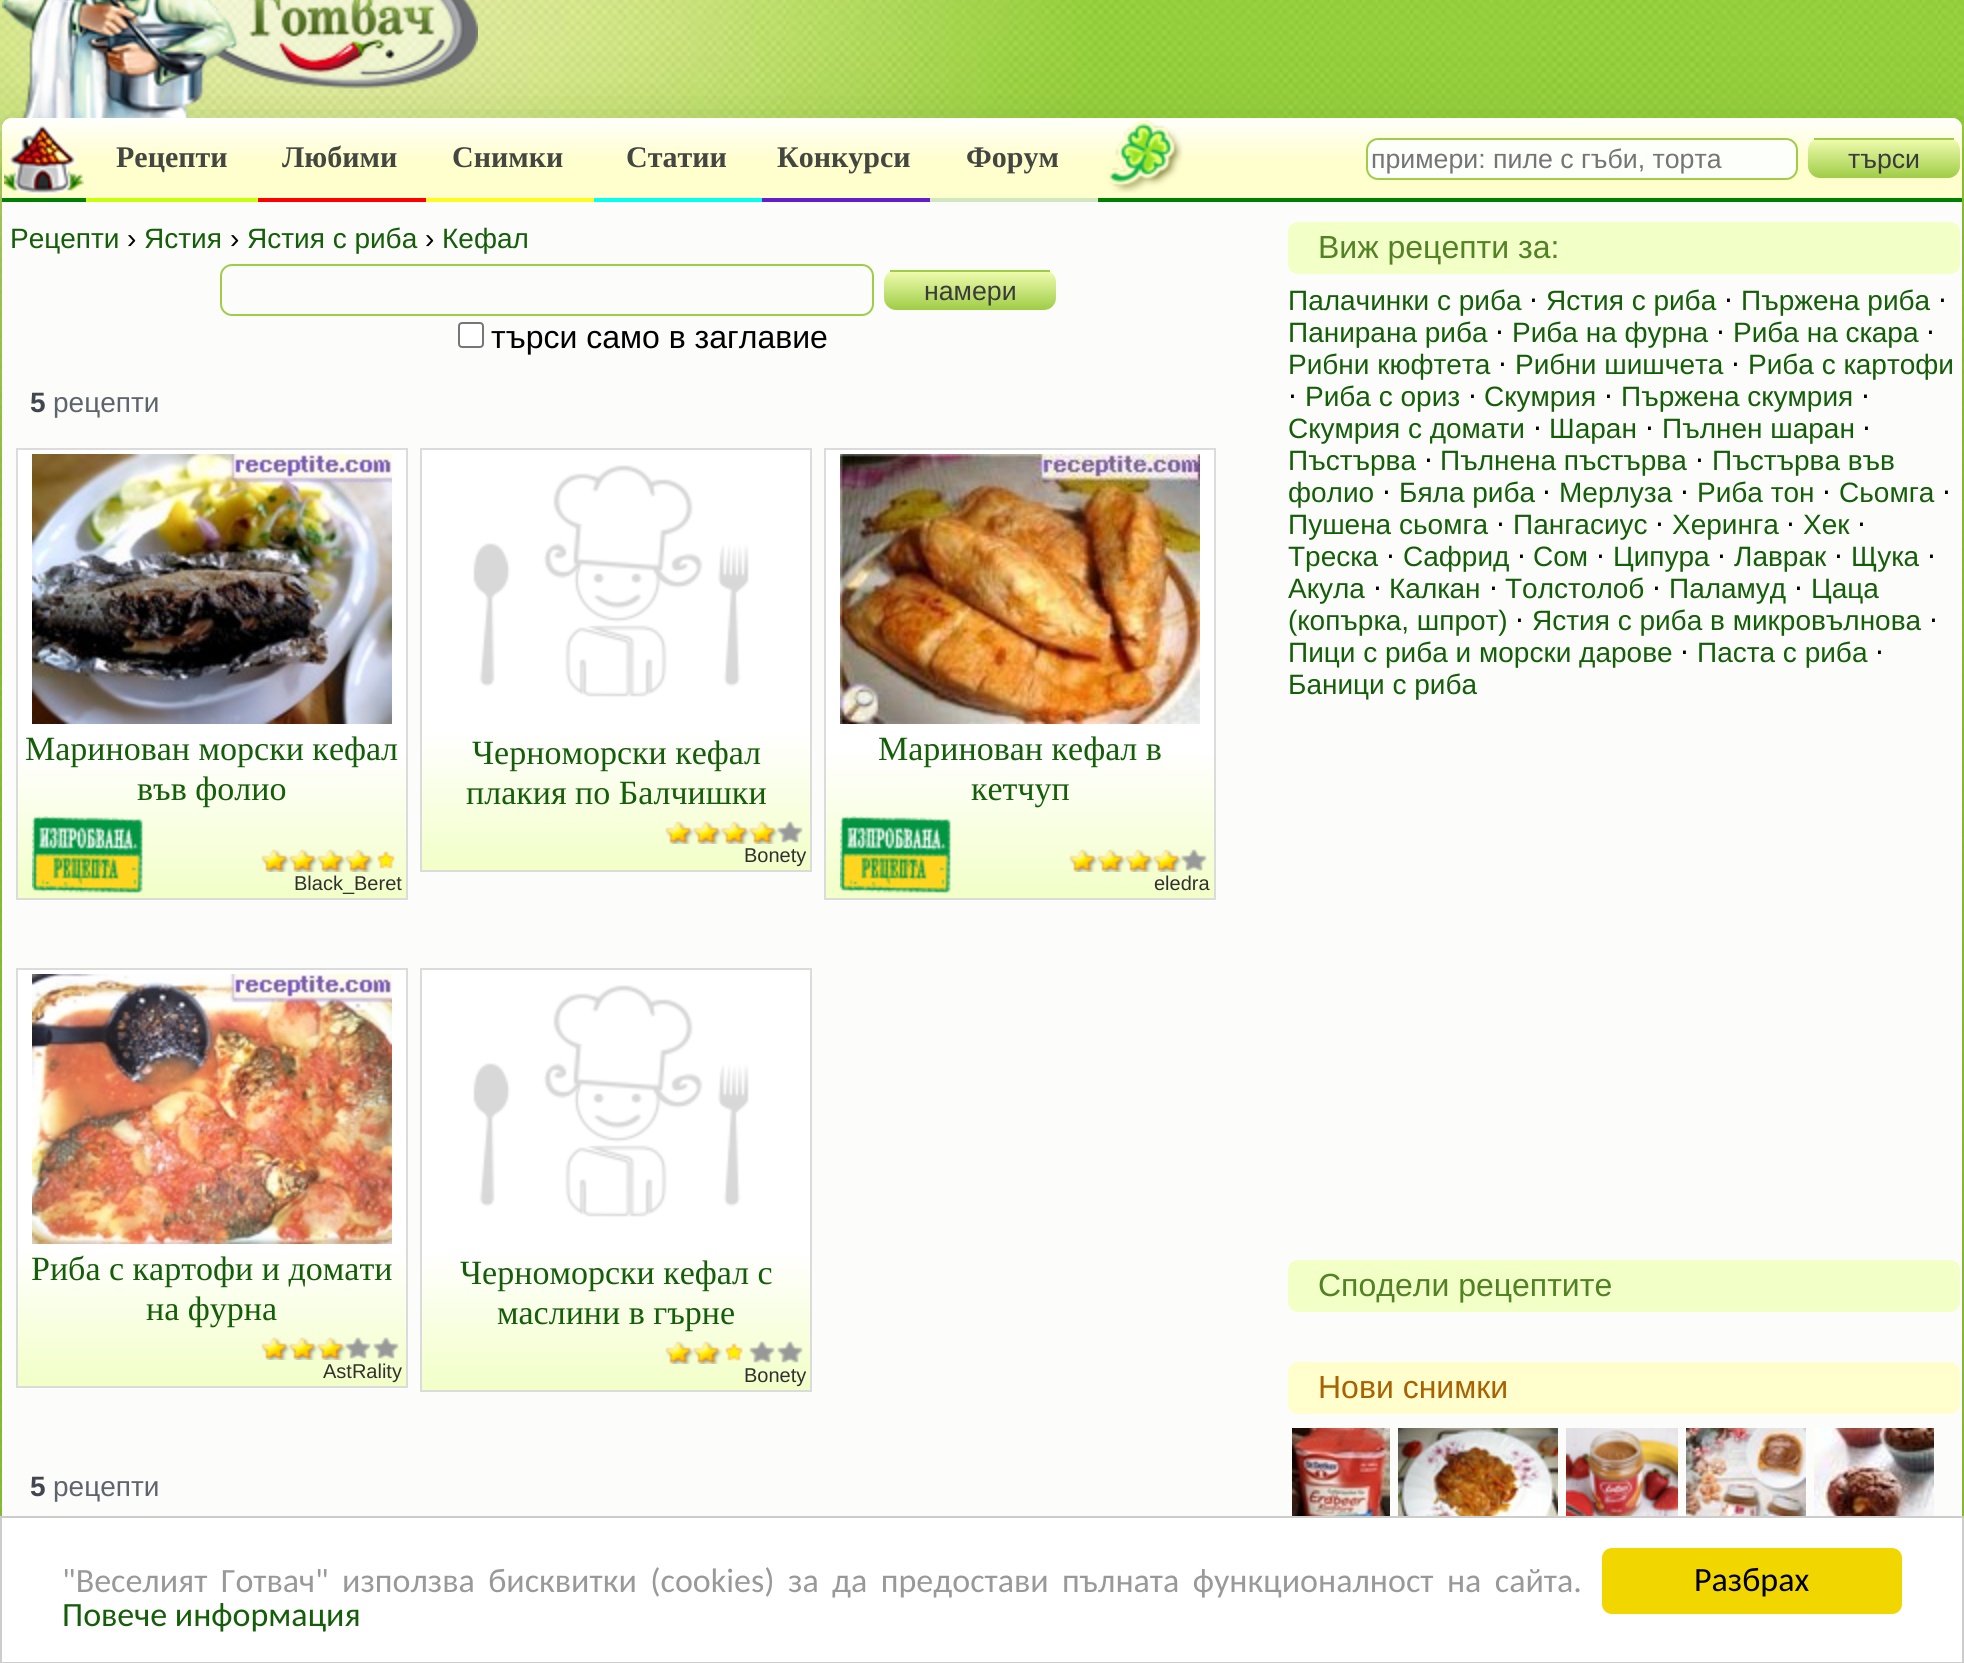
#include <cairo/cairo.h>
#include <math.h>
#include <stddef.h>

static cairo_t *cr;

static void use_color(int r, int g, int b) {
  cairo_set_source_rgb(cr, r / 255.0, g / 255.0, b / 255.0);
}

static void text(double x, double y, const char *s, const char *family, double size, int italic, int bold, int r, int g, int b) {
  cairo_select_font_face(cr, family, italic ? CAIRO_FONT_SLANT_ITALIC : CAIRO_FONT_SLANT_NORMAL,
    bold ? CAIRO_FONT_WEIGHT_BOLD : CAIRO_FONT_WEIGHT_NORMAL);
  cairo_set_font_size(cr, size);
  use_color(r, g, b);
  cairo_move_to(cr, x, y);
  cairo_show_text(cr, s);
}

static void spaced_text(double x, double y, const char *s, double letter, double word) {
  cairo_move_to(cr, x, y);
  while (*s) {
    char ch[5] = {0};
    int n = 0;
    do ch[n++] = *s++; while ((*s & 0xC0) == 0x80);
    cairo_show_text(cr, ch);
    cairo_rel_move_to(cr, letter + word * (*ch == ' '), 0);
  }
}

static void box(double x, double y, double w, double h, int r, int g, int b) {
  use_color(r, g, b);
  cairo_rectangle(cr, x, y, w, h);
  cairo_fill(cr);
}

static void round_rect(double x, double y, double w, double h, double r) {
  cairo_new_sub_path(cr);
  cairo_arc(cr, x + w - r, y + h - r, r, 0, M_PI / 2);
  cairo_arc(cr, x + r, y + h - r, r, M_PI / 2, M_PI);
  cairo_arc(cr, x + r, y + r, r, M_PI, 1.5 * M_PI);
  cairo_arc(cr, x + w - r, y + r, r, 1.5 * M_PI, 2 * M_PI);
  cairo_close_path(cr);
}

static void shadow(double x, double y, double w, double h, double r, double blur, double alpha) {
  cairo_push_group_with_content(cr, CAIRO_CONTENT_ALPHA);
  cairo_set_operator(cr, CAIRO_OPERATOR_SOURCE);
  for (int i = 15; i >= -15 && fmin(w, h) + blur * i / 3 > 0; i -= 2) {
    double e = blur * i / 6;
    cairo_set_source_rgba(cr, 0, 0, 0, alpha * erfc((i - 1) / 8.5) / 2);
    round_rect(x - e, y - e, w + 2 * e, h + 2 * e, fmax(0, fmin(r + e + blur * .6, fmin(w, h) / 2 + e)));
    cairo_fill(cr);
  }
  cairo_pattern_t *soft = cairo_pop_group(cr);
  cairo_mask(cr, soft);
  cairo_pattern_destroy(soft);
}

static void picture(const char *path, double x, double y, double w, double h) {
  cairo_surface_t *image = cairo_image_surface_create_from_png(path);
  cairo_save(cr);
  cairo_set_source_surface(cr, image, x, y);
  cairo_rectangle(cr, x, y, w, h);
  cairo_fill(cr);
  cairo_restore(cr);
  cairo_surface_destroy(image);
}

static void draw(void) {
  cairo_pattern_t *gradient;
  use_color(255, 255, 255);
  cairo_paint(cr);
  picture("img_01.png", 0, 848, 1964, 668);
  picture("img_02.png", 0, 0, 1964, 848);
  use_color(117, 162, 48);
  shadow(0, 156, 1964, 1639, 12, 40, 1);
  picture("img_03.png", 2, 0, 476, 118);
  use_color(252, 253, 251);
  round_rect(2, 118, 1960, 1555, 10);
  cairo_fill(cr);
  gradient = cairo_pattern_create_linear(982, 118, 982, 202);
  cairo_pattern_add_color_stop_rgba(gradient, 0, 1, 1, 0.992, 1);
  cairo_pattern_add_color_stop_rgba(gradient, 0.5, 1, 0.996, 0.804, 1);
  cairo_pattern_add_color_stop_rgba(gradient, 1, 1, 0.996, 0.804, 1);
  cairo_set_source(cr, gradient);
  cairo_pattern_destroy(gradient);
  round_rect(2, 118, 1960, 84, 10);
  cairo_fill(cr);
  box(2, 198, 1960, 4, 0, 128, 0);
  picture("img_04.png", 4, 124, 80, 70);
  box(926, 198, 172, 4, 209, 231, 191);
  box(758, 198, 172, 4, 102, 27, 205);
  box(590, 198, 172, 4, 6, 255, 242);
  box(422, 198, 172, 4, 255, 250, 32);
  box(254, 198, 172, 4, 255, 0, 0);
  box(86, 198, 172, 4, 200, 255, 9);
  picture("img_05.png", 1106, 120, 77, 73);
  use_color(253, 255, 251);
  round_rect(1367, 139, 430, 40, 11);
  cairo_fill_preserve(cr);
  use_color(159, 205, 70);
  cairo_stroke(cr);
  cairo_save(cr);
  round_rect(1808, 138, 152, 40, 12);
  cairo_clip(cr);
  gradient = cairo_pattern_create_linear(1884, 140, 1884, 178);
  cairo_pattern_add_color_stop_rgba(gradient, 0, 0.933, 0.984, 0.678, 1);
  cairo_pattern_add_color_stop_rgba(gradient, 1, 0.624, 0.804, 0.275, 1);
  cairo_set_source(cr, gradient);
  cairo_pattern_destroy(gradient);
  cairo_new_path(cr);
  cairo_move_to(cr, 1808, 140);
  cairo_line_to(cr, 1960, 140);
  cairo_line_to(cr, 1960, 166);
  cairo_curve_to(cr, 1960, 172.5, 1954.5, 178, 1948, 178);
  cairo_line_to(cr, 1820, 178);
  cairo_curve_to(cr, 1813.5, 178, 1808, 172.5, 1808, 166);
  cairo_close_path(cr);
  cairo_fill(cr);
  cairo_restore(cr);
  box(1814, 138, 140, 2, 159, 205, 70);
  round_rect(221, 265, 652, 50, 11);
  cairo_stroke(cr);
  cairo_save(cr);
  round_rect(884, 270, 172, 40, 12);
  cairo_clip(cr);
  gradient = cairo_pattern_create_linear(970, 272, 970, 310);
  cairo_pattern_add_color_stop_rgba(gradient, 0, 0.933, 0.984, 0.678, 1);
  cairo_pattern_add_color_stop_rgba(gradient, 1, 0.624, 0.804, 0.275, 1);
  cairo_set_source(cr, gradient);
  cairo_pattern_destroy(gradient);
  cairo_new_path(cr);
  cairo_move_to(cr, 884, 272);
  cairo_line_to(cr, 1056, 272);
  cairo_line_to(cr, 1056, 298);
  cairo_curve_to(cr, 1056, 304.5, 1050.5, 310, 1044, 310);
  cairo_line_to(cr, 896, 310);
  cairo_curve_to(cr, 889.5, 310, 884, 304.5, 884, 298);
  cairo_close_path(cr);
  cairo_fill(cr);
  cairo_restore(cr);
  box(890, 270, 160, 2, 159, 205, 70);
  use_color(255, 255, 255);
  round_rect(459, 323, 24, 24, 3);
  cairo_fill_preserve(cr);
  use_color(118, 118, 118);
  cairo_stroke(cr);
  gradient = cairo_pattern_create_linear(212, 450, 212, 898);
  cairo_pattern_add_color_stop_rgba(gradient, 0, 1, 1, 1, 1);
  cairo_pattern_add_color_stop_rgba(gradient, 0.67, 1, 1, 1, 1);
  cairo_pattern_add_color_stop_rgba(gradient, 1, 0.949, 1, 0.78, 1);
  cairo_set_source(cr, gradient);
  cairo_pattern_destroy(gradient);
  cairo_rectangle(cr, 18, 450, 388, 448);
  cairo_fill(cr);
  cairo_rectangle(cr, 17, 449, 390, 450);
  use_color(219, 219, 219);
  cairo_stroke(cr);
  picture("img_06.png", 32, 454, 360, 270);
  picture("img_07.png", 32, 816, 111, 78);
  picture("img_08.png", 261, 849, 134, 23);
  gradient = cairo_pattern_create_linear(616, 450, 616, 870);
  cairo_pattern_add_color_stop_rgba(gradient, 0, 1, 1, 1, 1);
  cairo_pattern_add_color_stop_rgba(gradient, 0.67, 1, 1, 1, 1);
  cairo_pattern_add_color_stop_rgba(gradient, 1, 0.949, 1, 0.78, 1);
  cairo_set_source(cr, gradient);
  cairo_pattern_destroy(gradient);
  cairo_rectangle(cr, 422, 450, 388, 420);
  cairo_fill(cr);
  cairo_rectangle(cr, 421, 449, 390, 422);
  use_color(219, 219, 219);
  cairo_stroke(cr);
  picture("img_09.png", 473, 465, 276, 232);
  picture("img_10.png", 665, 821, 138, 23);
  gradient = cairo_pattern_create_linear(1020, 450, 1020, 898);
  cairo_pattern_add_color_stop_rgba(gradient, 0, 1, 1, 1, 1);
  cairo_pattern_add_color_stop_rgba(gradient, 0.67, 1, 1, 1, 1);
  cairo_pattern_add_color_stop_rgba(gradient, 1, 0.949, 1, 0.78, 1);
  cairo_set_source(cr, gradient);
  cairo_pattern_destroy(gradient);
  cairo_rectangle(cr, 826, 450, 388, 448);
  cairo_fill(cr);
  cairo_rectangle(cr, 825, 449, 390, 450);
  use_color(219, 219, 219);
  cairo_stroke(cr);
  picture("img_11.png", 840, 454, 360, 270);
  picture("img_07.png", 840, 816, 111, 78);
  picture("img_12.png", 1069, 849, 138, 23);
  gradient = cairo_pattern_create_linear(212, 970, 212, 1386);
  cairo_pattern_add_color_stop_rgba(gradient, 0, 1, 1, 1, 1);
  cairo_pattern_add_color_stop_rgba(gradient, 0.67, 1, 1, 1, 1);
  cairo_pattern_add_color_stop_rgba(gradient, 1, 0.949, 1, 0.78, 1);
  cairo_set_source(cr, gradient);
  cairo_pattern_destroy(gradient);
  cairo_rectangle(cr, 18, 970, 388, 416);
  cairo_fill(cr);
  cairo_rectangle(cr, 17, 969, 390, 418);
  use_color(219, 219, 219);
  cairo_stroke(cr);
  picture("img_13.png", 32, 974, 360, 270);
  picture("img_14.png", 261, 1337, 138, 23);
  gradient = cairo_pattern_create_linear(616, 970, 616, 1390);
  cairo_pattern_add_color_stop_rgba(gradient, 0, 1, 1, 1, 1);
  cairo_pattern_add_color_stop_rgba(gradient, 0.67, 1, 1, 1, 1);
  cairo_pattern_add_color_stop_rgba(gradient, 1, 0.949, 1, 0.78, 1);
  cairo_set_source(cr, gradient);
  cairo_pattern_destroy(gradient);
  cairo_rectangle(cr, 422, 970, 388, 420);
  cairo_fill(cr);
  cairo_rectangle(cr, 421, 969, 390, 422);
  use_color(219, 219, 219);
  cairo_stroke(cr);
  picture("img_09.png", 473, 985, 276, 232);
  picture("img_15.png", 665, 1341, 138, 23);
  use_color(242, 255, 199);
  round_rect(1288, 222, 672, 52, 10);
  cairo_fill(cr);
  round_rect(1288, 1260, 672, 52, 10);
  cairo_fill(cr);
  use_color(255, 254, 204);
  round_rect(1288, 1362, 672, 52, 10);
  cairo_fill(cr);
  picture("img_16.png", 1292, 1428, 98, 88);
  picture("img_17.png", 1398, 1428, 160, 88);
  picture("img_18.png", 1566, 1428, 112, 88);
  picture("img_19.png", 1686, 1428, 120, 88);
  picture("img_20.png", 1814, 1428, 120, 88);
  use_color(255, 255, 255);
  cairo_rectangle(cr, 1, 1517, 1962, 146);
  cairo_fill_preserve(cr);
  use_color(204, 204, 204);
  cairo_stroke(cr);
  use_color(241, 214, 0);
  round_rect(1602, 1548, 300, 66, 10);
  cairo_fill(cr);
  text(116, 167, "Рецепти", "Liberation Serif", 30, 0, 1, 68, 71, 65);
  text(282, 167, "Любими", "Liberation Serif", 30, 0, 1, 68, 71, 65);
  text(452, 167, "Снимки", "Liberation Serif", 30, 0, 1, 68, 71, 65);
  text(626, 167, "Статии", "Liberation Serif", 30, 0, 1, 68, 71, 65);
  text(777, 167, "Конкурси", "Liberation Serif", 30, 0, 1, 68, 71, 65);
  text(966, 167, "Форум", "Liberation Serif", 30, 0, 1, 68, 71, 65);
  text(1371, 168, "примери: пиле с гъби, торта", "Liberation Sans", 26.7, 0, 0, 117, 117, 117);
  text(1848, 168, "търси", "Liberation Sans", 26.7, 0, 0, 59, 59, 59);
  text(10, 248, "Рецепти", "Liberation Sans", 28, 0, 0, 21, 94, 9);
  text(127, 248, "›", "Liberation Sans", 28, 0, 0, 0, 0, 0);
  text(144, 248, "Ястия", "Liberation Sans", 28, 0, 0, 21, 94, 9);
  text(230, 248, "›", "Liberation Sans", 28, 0, 0, 0, 0, 0);
  text(247, 248, "Ястия с риба", "Liberation Sans", 28, 0, 0, 21, 94, 9);
  text(425, 248, "›", "Liberation Sans", 28, 0, 0, 0, 0, 0);
  text(442, 248, "Кефал", "Liberation Sans", 28, 0, 0, 21, 94, 9);
  text(924, 300, "намери", "Liberation Sans", 26.7, 0, 0, 59, 59, 59);
  text(491, 348, "търси само в заглавие", "Liberation Sans", 32, 0, 0, 0, 0, 0);
  text(30, 412, "5", "Liberation Sans", 28, 0, 1, 66, 71, 79);
  text(53, 412, "рецепти", "Liberation Sans", 28, 0, 0, 94, 99, 108);
  text(25, 760, "Маринован морски кефал", "Liberation Serif", 34, 0, 0, 21, 94, 9);
  text(137, 800, "във фолио", "Liberation Serif", 34, 0, 0, 21, 94, 9);
  text(294, 890, "Black_Beret", "Liberation Sans", 20, 0, 0, 48, 48, 48);
  text(472, 764, "Черноморски кефал", "Liberation Serif", 34, 0, 0, 21, 94, 9);
  text(466, 804, "плакия по Балчишки", "Liberation Serif", 34, 0, 0, 21, 94, 9);
  text(744, 862, "Bonety", "Liberation Sans", 20, 0, 0, 48, 48, 48);
  text(878, 760, "Маринован кефал в", "Liberation Serif", 34, 0, 0, 21, 94, 9);
  text(971, 800, "кетчуп", "Liberation Serif", 34, 0, 0, 21, 94, 9);
  text(1154, 890, "eledra", "Liberation Sans", 20, 0, 0, 48, 48, 48);
  text(31, 1280, "Риба с картофи и домати", "Liberation Serif", 34, 0, 0, 21, 94, 9);
  text(146, 1320, "на фурна", "Liberation Serif", 34, 0, 0, 21, 94, 9);
  text(323, 1378, "AstRality", "Liberation Sans", 20, 0, 0, 48, 48, 48);
  text(460, 1284, "Черноморски кефал с", "Liberation Serif", 34, 0, 0, 21, 94, 9);
  text(497, 1324, "маслини в гърне", "Liberation Serif", 34, 0, 0, 21, 94, 9);
  text(744, 1382, "Bonety", "Liberation Sans", 20, 0, 0, 48, 48, 48);
  text(30, 1496, "5", "Liberation Sans", 28, 0, 1, 66, 71, 79);
  text(53, 1496, "рецепти", "Liberation Sans", 28, 0, 0, 94, 99, 108);
  text(1318, 258, "Виж рецепти за:", "Liberation Sans", 32, 0, 0, 83, 130, 36);
  text(1288, 310, "Палачинки с риба", "Liberation Sans", 28, 0, 0, 21, 94, 9);
  text(1529, 310, "⋅", "DejaVu Sans", 28, 0, 0, 0, 0, 0);
  text(1546, 310, "Ястия с риба", "Liberation Sans", 28, 0, 0, 21, 94, 9);
  text(1724, 310, "⋅", "DejaVu Sans", 28, 0, 0, 0, 0, 0);
  text(1741, 310, "Пържена риба", "Liberation Sans", 28, 0, 0, 21, 94, 9);
  text(1938, 310, "⋅", "DejaVu Sans", 28, 0, 0, 0, 0, 0);
  text(1288, 342, "Панирана риба", "Liberation Sans", 28, 0, 0, 21, 94, 9);
  text(1495, 342, "⋅", "DejaVu Sans", 28, 0, 0, 0, 0, 0);
  text(1512, 342, "Риба на фурна", "Liberation Sans", 28, 0, 0, 21, 94, 9);
  text(1716, 342, "⋅", "DejaVu Sans", 28, 0, 0, 0, 0, 0);
  text(1733, 342, "Риба на скара", "Liberation Sans", 28, 0, 0, 21, 94, 9);
  text(1926, 342, "⋅", "DejaVu Sans", 28, 0, 0, 0, 0, 0);
  text(1288, 374, "Рибни кюфтета", "Liberation Sans", 28, 0, 0, 21, 94, 9);
  text(1498, 374, "⋅", "DejaVu Sans", 28, 0, 0, 0, 0, 0);
  text(1515, 374, "Рибни шишчета", "Liberation Sans", 28, 0, 0, 21, 94, 9);
  text(1731, 374, "⋅", "DejaVu Sans", 28, 0, 0, 0, 0, 0);
  text(1748, 374, "Риба с картофи", "Liberation Sans", 28, 0, 0, 21, 94, 9);
  text(1288, 406, "⋅", "DejaVu Sans", 28, 0, 0, 0, 0, 0);
  text(1305, 406, "Риба с ориз", "Liberation Sans", 28, 0, 0, 21, 94, 9);
  text(1468, 406, "⋅", "DejaVu Sans", 28, 0, 0, 0, 0, 0);
  text(1484, 406, "Скумрия", "Liberation Sans", 28, 0, 0, 21, 94, 9);
  text(1604, 406, "⋅", "DejaVu Sans", 28, 0, 0, 0, 0, 0);
  text(1621, 406, "Пържена скумрия", "Liberation Sans", 28, 0, 0, 21, 94, 9);
  text(1861, 406, "⋅", "DejaVu Sans", 28, 0, 0, 0, 0, 0);
  text(1288, 438, "Скумрия с домати", "Liberation Sans", 28, 0, 0, 21, 94, 9);
  text(1533, 438, "⋅", "DejaVu Sans", 28, 0, 0, 0, 0, 0);
  text(1549, 438, "Шаран", "Liberation Sans", 28, 0, 0, 21, 94, 9);
  text(1645, 438, "⋅", "DejaVu Sans", 28, 0, 0, 0, 0, 0);
  text(1662, 438, "Пълнен шаран", "Liberation Sans", 28, 0, 0, 21, 94, 9);
  text(1862, 438, "⋅", "DejaVu Sans", 28, 0, 0, 0, 0, 0);
  text(1288, 470, "Пъстърва", "Liberation Sans", 28, 0, 0, 21, 94, 9);
  text(1424, 470, "⋅", "DejaVu Sans", 28, 0, 0, 0, 0, 0);
  text(1440, 470, "Пълнена пъстърва", "Liberation Sans", 28, 0, 0, 21, 94, 9);
  text(1695, 470, "⋅", "DejaVu Sans", 28, 0, 0, 0, 0, 0);
  text(1712, 470, "Пъстърва във", "Liberation Sans", 28, 0, 0, 21, 94, 9);
  text(1288, 502, "фолио", "Liberation Sans", 28, 0, 0, 21, 94, 9);
  text(1382, 502, "⋅", "DejaVu Sans", 28, 0, 0, 0, 0, 0);
  text(1399, 502, "Бяла риба", "Liberation Sans", 28, 0, 0, 21, 94, 9);
  text(1542, 502, "⋅", "DejaVu Sans", 28, 0, 0, 0, 0, 0);
  text(1559, 502, "Мерлуза", "Liberation Sans", 28, 0, 0, 21, 94, 9);
  text(1680, 502, "⋅", "DejaVu Sans", 28, 0, 0, 0, 0, 0);
  text(1697, 502, "Риба тон", "Liberation Sans", 28, 0, 0, 21, 94, 9);
  text(1822, 502, "⋅", "DejaVu Sans", 28, 0, 0, 0, 0, 0);
  text(1839, 502, "Сьомга", "Liberation Sans", 28, 0, 0, 21, 94, 9);
  text(1942, 502, "⋅", "DejaVu Sans", 28, 0, 0, 0, 0, 0);
  text(1288, 534, "Пушена сьомга", "Liberation Sans", 28, 0, 0, 21, 94, 9);
  text(1496, 534, "⋅", "DejaVu Sans", 28, 0, 0, 0, 0, 0);
  text(1513, 534, "Пангасиус", "Liberation Sans", 28, 0, 0, 21, 94, 9);
  text(1655, 534, "⋅", "DejaVu Sans", 28, 0, 0, 0, 0, 0);
  text(1672, 534, "Херинга", "Liberation Sans", 28, 0, 0, 21, 94, 9);
  text(1786, 534, "⋅", "DejaVu Sans", 28, 0, 0, 0, 0, 0);
  text(1803, 534, "Хек", "Liberation Sans", 28, 0, 0, 21, 94, 9);
  text(1857, 534, "⋅", "DejaVu Sans", 28, 0, 0, 0, 0, 0);
  text(1288, 566, "Треска", "Liberation Sans", 28, 0, 0, 21, 94, 9);
  text(1386, 566, "⋅", "DejaVu Sans", 28, 0, 0, 0, 0, 0);
  text(1403, 566, "Сафрид", "Liberation Sans", 28, 0, 0, 21, 94, 9);
  text(1517, 566, "⋅", "DejaVu Sans", 28, 0, 0, 0, 0, 0);
  text(1533, 566, "Сом", "Liberation Sans", 28, 0, 0, 21, 94, 9);
  text(1596, 566, "⋅", "DejaVu Sans", 28, 0, 0, 0, 0, 0);
  text(1613, 566, "Ципура", "Liberation Sans", 28, 0, 0, 21, 94, 9);
  text(1717, 566, "⋅", "DejaVu Sans", 28, 0, 0, 0, 0, 0);
  text(1734, 566, "Лаврак", "Liberation Sans", 28, 0, 0, 21, 94, 9);
  text(1834, 566, "⋅", "DejaVu Sans", 28, 0, 0, 0, 0, 0);
  text(1851, 566, "Щука", "Liberation Sans", 28, 0, 0, 21, 94, 9);
  text(1927, 566, "⋅", "DejaVu Sans", 28, 0, 0, 0, 0, 0);
  text(1288, 598, "Акула", "Liberation Sans", 28, 0, 0, 21, 94, 9);
  text(1373, 598, "⋅", "DejaVu Sans", 28, 0, 0, 0, 0, 0);
  text(1389, 598, "Калкан", "Liberation Sans", 28, 0, 0, 21, 94, 9);
  text(1489, 598, "⋅", "DejaVu Sans", 28, 0, 0, 0, 0, 0);
  text(1505, 598, "Толстолоб", "Liberation Sans", 28, 0, 0, 21, 94, 9);
  text(1652, 598, "⋅", "DejaVu Sans", 28, 0, 0, 0, 0, 0);
  text(1669, 598, "Паламуд", "Liberation Sans", 28, 0, 0, 21, 94, 9);
  text(1794, 598, "⋅", "DejaVu Sans", 28, 0, 0, 0, 0, 0);
  text(1811, 598, "Цаца", "Liberation Sans", 28, 0, 0, 21, 94, 9);
  text(1288, 630, "(копърка, шпрот)", "Liberation Sans", 28, 0, 0, 21, 94, 9);
  text(1515, 630, "⋅", "DejaVu Sans", 28, 0, 0, 0, 0, 0);
  text(1532, 630, "Ястия с риба в микровълнова", "Liberation Sans", 28, 0, 0, 21, 94, 9);
  text(1929, 630, "⋅", "DejaVu Sans", 28, 0, 0, 0, 0, 0);
  text(1288, 662, "Пици с риба и морски дарове", "Liberation Sans", 28, 0, 0, 21, 94, 9);
  text(1680, 662, "⋅", "DejaVu Sans", 28, 0, 0, 0, 0, 0);
  text(1697, 662, "Паста с риба", "Liberation Sans", 28, 0, 0, 21, 94, 9);
  text(1875, 662, "⋅", "DejaVu Sans", 28, 0, 0, 0, 0, 0);
  text(1288, 694, "Баници с риба", "Liberation Sans", 28, 0, 0, 21, 94, 9);
  text(1318, 1296, "Сподели рецептите", "Liberation Sans", 32, 0, 0, 83, 130, 36);
  text(1318, 1398, "Нови снимки", "Liberation Sans", 32, 0, 0, 169, 98, 1);
  cairo_select_font_face(cr, "Carlito", CAIRO_FONT_SLANT_NORMAL, CAIRO_FONT_WEIGHT_NORMAL);
  cairo_set_font_size(cr, 34);
  use_color(153, 153, 153);
  spaced_text(62, 1592, "\"Веселият Готвач\" използва бисквитки (cookies) за да предостави пълната функционалност на сайта.", 0, 5.75);
  text(62, 1626, "Повече информация", "Carlito", 34, 0, 0, 21, 94, 9);
  text(1694, 1591, "Разбрах", "Carlito", 34, 0, 0, 0, 0, 0);
}

int main(void) {
  cairo_surface_t *surface = cairo_image_surface_create(CAIRO_FORMAT_RGB24, 1964, 1663);
  cr = cairo_create(surface);
  cairo_font_options_t *options = cairo_font_options_create();
  cairo_font_options_set_hint_metrics(options, CAIRO_HINT_METRICS_OFF);
  cairo_font_options_set_hint_style(options, CAIRO_HINT_STYLE_NONE);
  cairo_set_font_options(cr, options);
  cairo_set_miter_limit(cr, 4);
  draw();
  cairo_surface_write_to_png(surface, "out.png");
  cairo_font_options_destroy(options);
  cairo_destroy(cr);
  cairo_surface_destroy(surface);
  return 0;
}
